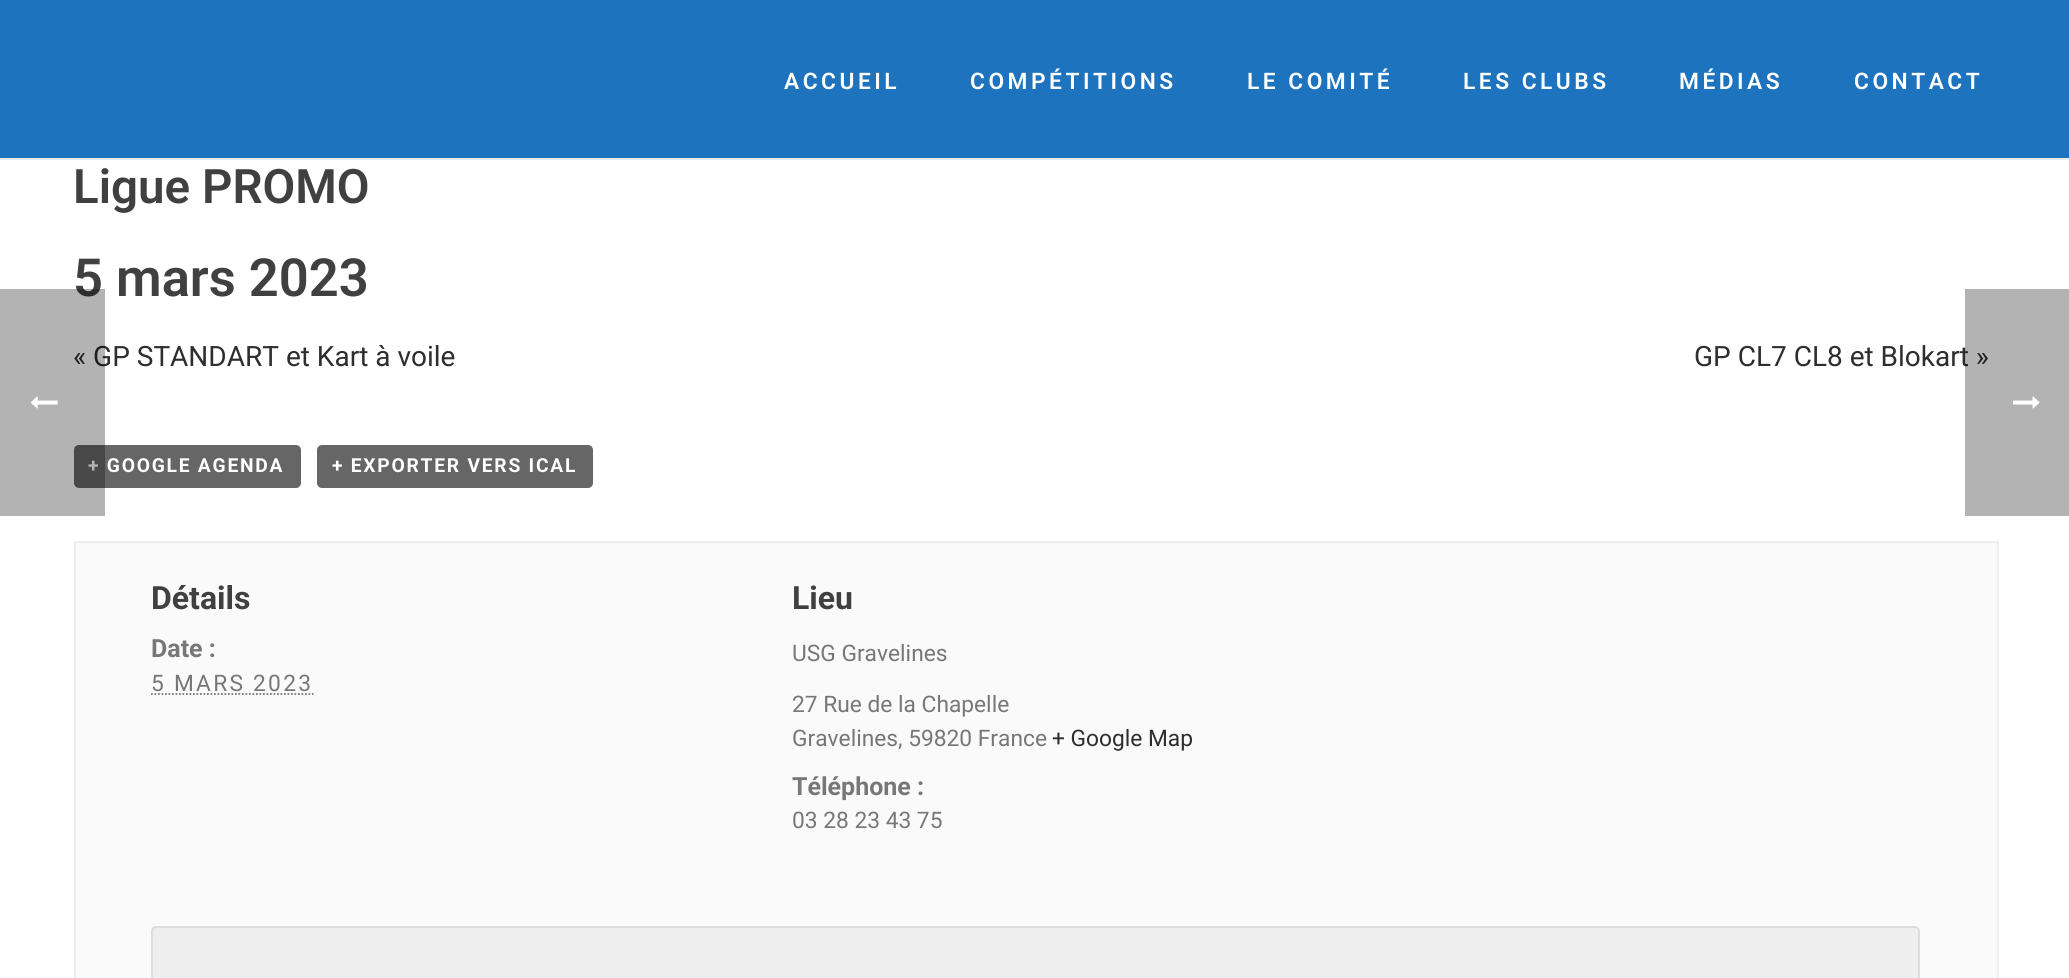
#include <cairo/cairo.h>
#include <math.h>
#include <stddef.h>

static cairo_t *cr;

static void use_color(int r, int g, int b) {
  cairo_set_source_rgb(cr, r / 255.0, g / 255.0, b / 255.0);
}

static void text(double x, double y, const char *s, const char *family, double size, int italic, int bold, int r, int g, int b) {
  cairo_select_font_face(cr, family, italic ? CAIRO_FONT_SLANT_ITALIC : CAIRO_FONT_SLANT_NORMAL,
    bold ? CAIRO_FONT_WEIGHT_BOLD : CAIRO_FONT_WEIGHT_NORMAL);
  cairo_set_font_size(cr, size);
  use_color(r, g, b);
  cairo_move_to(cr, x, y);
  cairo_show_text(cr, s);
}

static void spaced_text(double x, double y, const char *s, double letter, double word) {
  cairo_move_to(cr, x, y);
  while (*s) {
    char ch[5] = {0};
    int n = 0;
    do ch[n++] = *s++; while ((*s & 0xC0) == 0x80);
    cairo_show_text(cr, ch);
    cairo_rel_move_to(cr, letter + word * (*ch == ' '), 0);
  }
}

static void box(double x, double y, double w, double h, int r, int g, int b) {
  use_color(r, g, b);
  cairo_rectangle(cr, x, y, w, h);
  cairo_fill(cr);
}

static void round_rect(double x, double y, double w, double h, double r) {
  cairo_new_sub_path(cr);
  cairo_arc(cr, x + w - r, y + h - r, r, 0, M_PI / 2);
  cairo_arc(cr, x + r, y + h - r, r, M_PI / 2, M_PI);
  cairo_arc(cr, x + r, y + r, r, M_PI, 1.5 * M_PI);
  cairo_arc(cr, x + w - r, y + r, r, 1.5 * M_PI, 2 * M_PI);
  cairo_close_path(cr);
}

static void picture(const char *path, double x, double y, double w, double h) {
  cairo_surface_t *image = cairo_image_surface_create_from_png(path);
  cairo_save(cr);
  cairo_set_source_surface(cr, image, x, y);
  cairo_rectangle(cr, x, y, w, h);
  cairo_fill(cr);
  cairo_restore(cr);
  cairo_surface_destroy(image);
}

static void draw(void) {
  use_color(255, 255, 255);
  cairo_paint(cr);
  box(0, 158, 2069, 2, 237, 237, 237);
  box(0, 0, 2069, 158, 30, 115, 190);
  use_color(102, 102, 102);
  round_rect(74, 445, 227, 43, 5);
  cairo_fill(cr);
  round_rect(317, 445, 276, 43, 5);
  cairo_fill(cr);
  use_color(250, 250, 250);
  cairo_rectangle(cr, 75, 542, 1923, 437);
  cairo_fill_preserve(cr);
  use_color(238, 238, 238);
  cairo_stroke(cr);
  cairo_new_path(cr);
  cairo_move_to(cr, 151, 694);
  cairo_line_to(cr, 313.5, 694);
  use_color(119, 119, 119);
  cairo_set_line_width(cr, 1.8);
  cairo_set_dash(cr, (double[]){1.75, 1.75}, 2, 0);
  cairo_stroke(cr);
  use_color(238, 238, 238);
  round_rect(152, 927, 1767, 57, 4);
  cairo_fill_preserve(cr);
  use_color(221, 221, 221);
  cairo_set_line_width(cr, 2);
  cairo_set_dash(cr, NULL, 0, 0);
  cairo_stroke(cr);
  cairo_select_font_face(cr, "Roboto SemiBold", CAIRO_FONT_SLANT_NORMAL, CAIRO_FONT_WEIGHT_NORMAL);
  cairo_set_font_size(cr, 22.75);
  use_color(255, 255, 255);
  spaced_text(784, 89, "ACCUEIL", 3.5, 0);
  spaced_text(970, 89, "COMPÉTITIONS", 3.5, 0);
  spaced_text(1247, 89, "LE COMITÉ", 3.5, 0);
  spaced_text(1463, 89, "LES CLUBS", 3.5, 0);
  spaced_text(1679, 89, "MÉDIAS", 3.5, 0);
  spaced_text(1854, 89, "CONTACT", 3.5, 0);
  text(73, 203, "Ligue PROMO", "Roboto SemiBold", 47.5, 0, 0, 64, 64, 64);
  text(73, 296, "5 mars 2023", "Roboto SemiBold", 52.5, 0, 0, 64, 64, 64);
  text(73, 366, "« GP STANDART et Kart à voile", "Roboto", 28, 0, 0, 46, 46, 46);
  text(1694, 366, "GP CL7 CL8 et Blokart »", "Roboto", 28, 0, 0, 46, 46, 46);
  cairo_select_font_face(cr, "Roboto", CAIRO_FONT_SLANT_NORMAL, CAIRO_FONT_WEIGHT_BOLD);
  cairo_set_font_size(cr, 19.25);
  use_color(255, 255, 255);
  spaced_text(88, 472, "+ GOOGLE AGENDA", 1.75, 0);
  cairo_set_source_rgba(cr, 0, 0, 0, 0.3);
  cairo_rectangle(cr, 0, 289, 105, 227);
  cairo_fill(cr);
  picture("img_01.png", 30, 396, 28, 13);
  use_color(255, 255, 255);
  spaced_text(332, 472, "+ EXPORTER VERS ICAL", 1.75, 0);
  text(151, 609, "Détails", "Roboto", 32, 0, 1, 64, 64, 64);
  text(151, 657, "Date :", "Roboto", 25, 0, 1, 119, 119, 119);
  cairo_select_font_face(cr, "Roboto", CAIRO_FONT_SLANT_NORMAL, CAIRO_FONT_WEIGHT_NORMAL);
  cairo_set_font_size(cr, 22.75);
  spaced_text(151, 691, "5 MARS 2023", 2.25, 0);
  text(792, 609, "Lieu", "Roboto", 32, 0, 1, 64, 64, 64);
  text(792, 661, "USG Gravelines", "Roboto", 22.75, 0, 0, 119, 119, 119);
  text(792, 712, "27 Rue de la Chapelle", "Roboto", 22.75, 0, 0, 119, 119, 119);
  text(792, 746, "Gravelines, 59820 France", "Roboto", 22.75, 0, 0, 119, 119, 119);
  text(1052, 746, "+ Google Map", "Roboto", 22.75, 0, 0, 46, 46, 46);
  text(792, 795, "Téléphone :", "Roboto", 25, 0, 1, 119, 119, 119);
  text(792, 828, "03 28 23 43 75", "Roboto", 22.75, 0, 0, 119, 119, 119);
  cairo_set_source_rgba(cr, 0, 0, 0, 0.3);
  cairo_rectangle(cr, 1965, 289, 104, 227);
  cairo_fill(cr);
  picture("img_02.png", 2013, 396, 27, 13);
}

int main(void) {
  cairo_surface_t *surface = cairo_image_surface_create(CAIRO_FORMAT_RGB24, 2069, 978);
  cr = cairo_create(surface);
  cairo_font_options_t *options = cairo_font_options_create();
  cairo_font_options_set_hint_metrics(options, CAIRO_HINT_METRICS_OFF);
  cairo_font_options_set_hint_style(options, CAIRO_HINT_STYLE_NONE);
  cairo_set_font_options(cr, options);
  cairo_set_miter_limit(cr, 4);
  draw();
  cairo_surface_write_to_png(surface, "out.png");
  cairo_font_options_destroy(options);
  cairo_destroy(cr);
  cairo_surface_destroy(surface);
  return 0;
}
